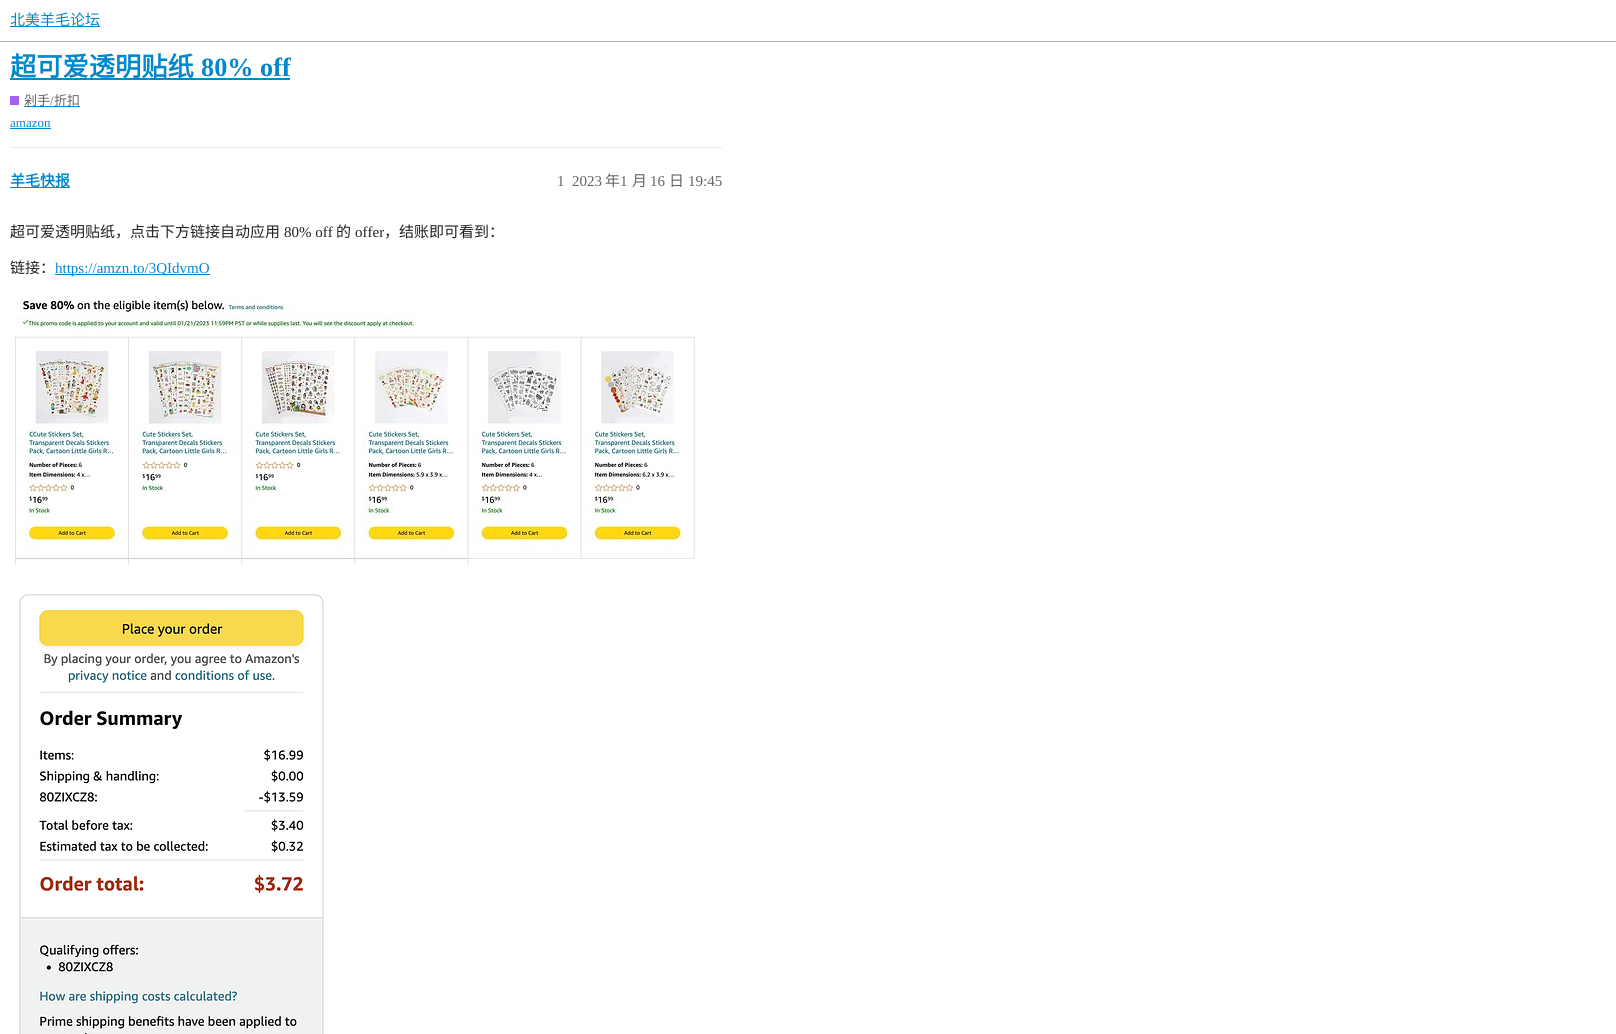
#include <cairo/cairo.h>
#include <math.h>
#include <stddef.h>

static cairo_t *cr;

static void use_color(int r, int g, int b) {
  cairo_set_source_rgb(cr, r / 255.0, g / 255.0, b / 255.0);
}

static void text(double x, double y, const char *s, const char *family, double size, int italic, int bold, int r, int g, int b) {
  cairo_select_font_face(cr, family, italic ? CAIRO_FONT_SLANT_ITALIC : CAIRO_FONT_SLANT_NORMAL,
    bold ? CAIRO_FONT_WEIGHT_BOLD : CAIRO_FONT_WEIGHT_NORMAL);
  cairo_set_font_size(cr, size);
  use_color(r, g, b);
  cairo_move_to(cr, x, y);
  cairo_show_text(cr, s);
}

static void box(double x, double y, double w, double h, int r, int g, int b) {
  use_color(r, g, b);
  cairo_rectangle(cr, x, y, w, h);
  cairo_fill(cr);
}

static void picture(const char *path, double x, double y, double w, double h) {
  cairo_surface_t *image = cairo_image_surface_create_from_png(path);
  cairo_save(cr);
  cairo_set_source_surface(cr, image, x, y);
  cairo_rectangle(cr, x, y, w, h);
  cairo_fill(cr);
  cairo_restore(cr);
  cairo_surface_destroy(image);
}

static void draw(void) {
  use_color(255, 255, 255);
  cairo_paint(cr);
  box(0, 41, 1616, 1, 175, 175, 175);
  box(10, 26, 90, 1, 0, 136, 204);
  box(10, 78, 280, 2, 0, 136, 204);
  box(10, 96, 9, 9, 164, 97, 239);
  box(24, 106, 56, 1, 0, 136, 204);
  box(10, 128, 41, 1, 0, 136, 204);
  box(10, 147, 712, 1, 233, 233, 233);
  box(10, 187, 60, 1, 0, 136, 204);
  box(55, 274, 155, 1, 0, 136, 204);
  picture("img_01.png", 11, 294, 689, 271);
  picture("img_02.png", 19, 594, 305, 440);
  text(10, 25, "北美羊毛论坛", "Noto Sans CJK SC", 15, 0, 0, 0, 136, 204);
  text(10, 76, "超可爱透明贴纸", "Noto Sans CJK SC", 26.25, 0, 1, 0, 136, 204);
  text(201, 76, "80% off", "Liberation Serif", 26.25, 0, 1, 0, 136, 204);
  text(24, 105, "剁手", "Noto Sans CJK SC", 13, 0, 0, 100, 100, 100);
  text(50, 105, "/", "Liberation Serif", 13, 0, 0, 100, 100, 100);
  text(54, 105, "折扣", "Noto Sans CJK SC", 13, 0, 0, 100, 100, 100);
  text(10, 127, "amazon", "Liberation Serif", 13, 0, 0, 0, 136, 204);
  text(10, 186, "羊毛快报", "Noto Sans CJK SC", 15, 0, 1, 0, 136, 204);
  text(557, 186, "1", "Liberation Serif", 15, 0, 0, 100, 100, 100);
  text(572, 186, "2023", "Liberation Serif", 15, 0, 0, 100, 100, 100);
  text(605, 186, "年", "Noto Sans CJK SC", 15, 0, 0, 100, 100, 100);
  text(620, 186, "1", "Liberation Serif", 15, 0, 0, 100, 100, 100);
  text(632, 186, "月", "Noto Sans CJK SC", 15, 0, 0, 100, 100, 100);
  text(650, 186, "16", "Liberation Serif", 15, 0, 0, 100, 100, 100);
  text(669, 186, "日", "Noto Sans CJK SC", 15, 0, 0, 100, 100, 100);
  text(688, 186, "19:45", "Liberation Serif", 15, 0, 0, 100, 100, 100);
  text(10, 237, "超可爱透明贴纸，点击下方链接自动应用", "Noto Sans CJK SC", 15, 0, 0, 34, 34, 34);
  text(284, 237, "80% off", "Liberation Serif", 15, 0, 0, 34, 34, 34);
  text(336, 237, "的", "Noto Sans CJK SC", 15, 0, 0, 34, 34, 34);
  text(355, 237, "offer", "Liberation Serif", 15, 0, 0, 34, 34, 34);
  text(384, 237, "，结账即可看到：", "Noto Sans CJK SC", 15, 0, 0, 34, 34, 34);
  text(10, 273, "链接：", "Noto Sans CJK SC", 15, 0, 0, 34, 34, 34);
  text(55, 273, "https://amzn.to/3QIdvmO", "Liberation Serif", 15, 0, 0, 0, 136, 204);
}

int main(void) {
  cairo_surface_t *surface = cairo_image_surface_create(CAIRO_FORMAT_RGB24, 1616, 1034);
  cr = cairo_create(surface);
  cairo_font_options_t *options = cairo_font_options_create();
  cairo_font_options_set_hint_metrics(options, CAIRO_HINT_METRICS_OFF);
  cairo_font_options_set_hint_style(options, CAIRO_HINT_STYLE_NONE);
  cairo_set_font_options(cr, options);
  cairo_set_miter_limit(cr, 4);
  draw();
  cairo_surface_write_to_png(surface, "out.png");
  cairo_font_options_destroy(options);
  cairo_destroy(cr);
  cairo_surface_destroy(surface);
  return 0;
}
